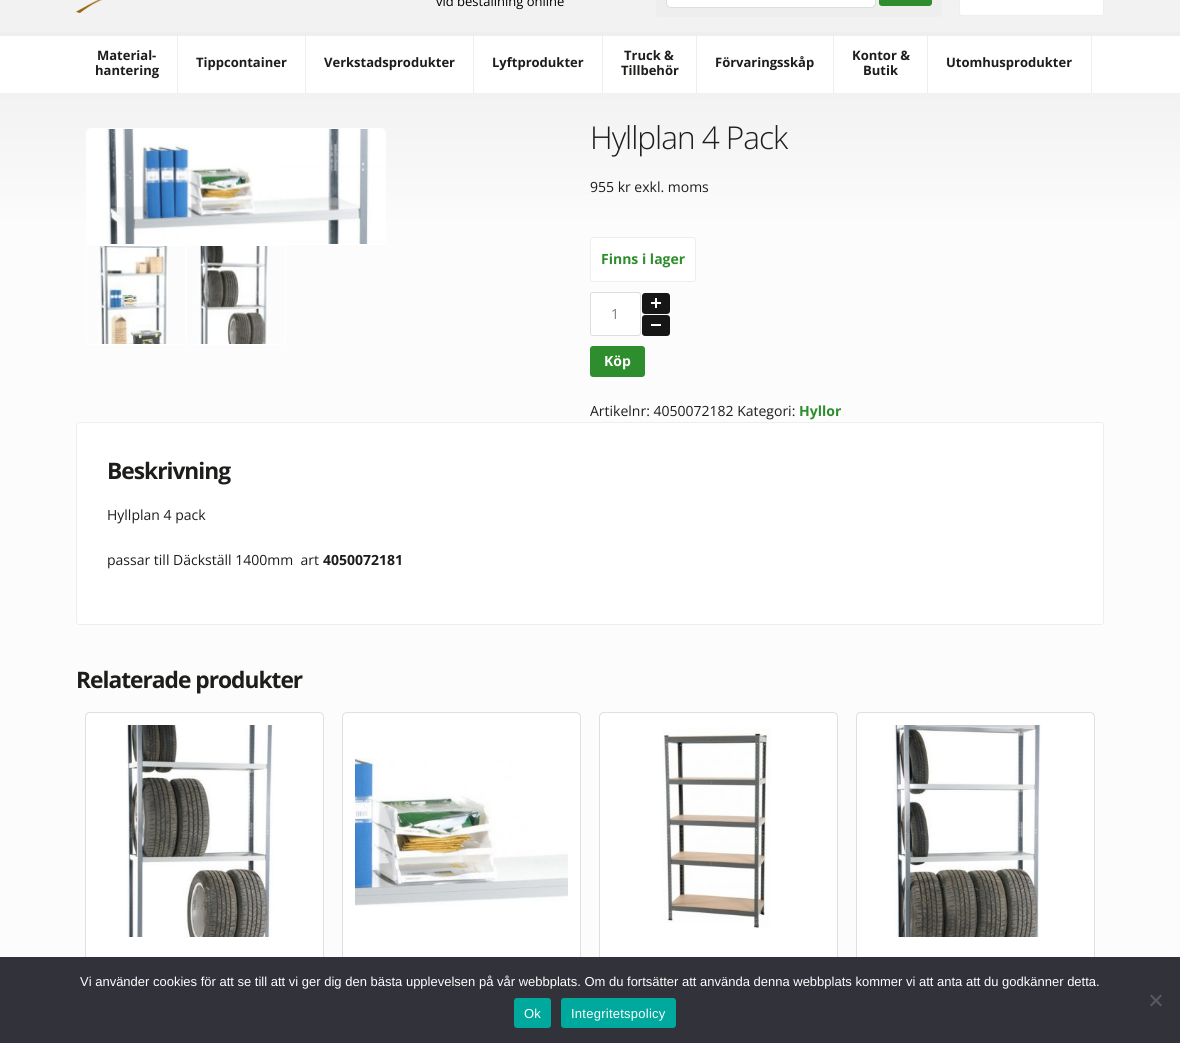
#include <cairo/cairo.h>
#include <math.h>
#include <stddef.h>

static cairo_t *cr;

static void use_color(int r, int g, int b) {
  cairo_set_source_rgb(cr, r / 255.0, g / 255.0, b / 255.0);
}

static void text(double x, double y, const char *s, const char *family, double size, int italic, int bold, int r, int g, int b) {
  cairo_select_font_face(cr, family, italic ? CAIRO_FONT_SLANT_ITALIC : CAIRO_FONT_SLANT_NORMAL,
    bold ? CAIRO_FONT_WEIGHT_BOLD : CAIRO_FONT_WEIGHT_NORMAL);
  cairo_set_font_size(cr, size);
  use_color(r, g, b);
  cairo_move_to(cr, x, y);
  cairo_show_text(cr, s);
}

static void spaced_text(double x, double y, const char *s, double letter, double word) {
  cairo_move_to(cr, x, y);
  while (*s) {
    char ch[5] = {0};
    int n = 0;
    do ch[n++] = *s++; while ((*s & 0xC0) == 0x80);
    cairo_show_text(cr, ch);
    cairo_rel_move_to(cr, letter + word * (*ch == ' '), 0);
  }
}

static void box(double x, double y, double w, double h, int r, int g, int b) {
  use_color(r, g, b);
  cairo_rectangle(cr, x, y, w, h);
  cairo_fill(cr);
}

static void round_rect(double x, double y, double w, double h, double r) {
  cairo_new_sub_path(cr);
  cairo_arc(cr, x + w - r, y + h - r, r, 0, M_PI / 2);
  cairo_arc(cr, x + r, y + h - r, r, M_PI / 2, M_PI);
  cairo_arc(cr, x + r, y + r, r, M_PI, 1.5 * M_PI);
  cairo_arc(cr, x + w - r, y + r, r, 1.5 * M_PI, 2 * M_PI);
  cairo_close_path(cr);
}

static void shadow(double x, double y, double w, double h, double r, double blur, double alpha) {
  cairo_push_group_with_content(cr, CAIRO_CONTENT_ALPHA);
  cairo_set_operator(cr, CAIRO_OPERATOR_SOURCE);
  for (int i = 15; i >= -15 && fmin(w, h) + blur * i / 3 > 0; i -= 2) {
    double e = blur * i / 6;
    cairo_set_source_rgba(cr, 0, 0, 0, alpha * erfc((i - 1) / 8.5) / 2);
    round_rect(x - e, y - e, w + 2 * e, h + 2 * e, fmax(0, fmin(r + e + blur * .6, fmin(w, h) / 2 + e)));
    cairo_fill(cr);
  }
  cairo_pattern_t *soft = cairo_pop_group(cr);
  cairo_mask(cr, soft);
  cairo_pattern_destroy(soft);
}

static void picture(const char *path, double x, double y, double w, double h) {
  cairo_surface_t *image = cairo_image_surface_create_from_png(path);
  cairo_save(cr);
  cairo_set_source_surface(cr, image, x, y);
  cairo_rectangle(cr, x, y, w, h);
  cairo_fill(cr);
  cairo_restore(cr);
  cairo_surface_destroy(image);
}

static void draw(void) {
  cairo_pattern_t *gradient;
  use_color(255, 255, 255);
  cairo_paint(cr);
  box(0, 0, 1180, 32, 242, 242, 242);
  picture("img_01.png", 76, 0, 27, 13);
  use_color(238, 238, 238);
  round_rect(656, -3, 286, 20, 3);
  cairo_fill(cr);
  use_color(255, 255, 255);
  round_rect(666.5, -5.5, 209, 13, 4.5);
  cairo_fill_preserve(cr);
  use_color(221, 221, 221);
  cairo_set_line_width(cr, 1);
  cairo_stroke(cr);
  use_color(46, 141, 45);
  round_rect(879, -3, 53, 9, 3);
  cairo_fill(cr);
  use_color(255, 255, 255);
  round_rect(959.5, -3.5, 144, 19, 2.5);
  cairo_fill_preserve(cr);
  use_color(238, 238, 238);
  cairo_stroke(cr);
  box(0, 32, 1180, 4, 238, 238, 238);
  box(177, 33, 1, 60, 238, 238, 238);
  box(305, 33, 1, 60, 238, 238, 238);
  box(473, 33, 1, 60, 238, 238, 238);
  box(602, 33, 1, 60, 238, 238, 238);
  box(696, 33, 1, 60, 238, 238, 238);
  box(833, 33, 1, 60, 238, 238, 238);
  box(927, 33, 1, 60, 238, 238, 238);
  box(1091, 33, 1, 60, 238, 238, 238);
  gradient = cairo_pattern_create_linear(590, 93, 590, 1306);
  cairo_pattern_add_color_stop_rgba(gradient, 0, 0.949, 0.949, 0.949, 1);
  cairo_pattern_add_color_stop_rgba(gradient, 0.11, 0.988, 0.988, 0.988, 1);
  cairo_set_source(cr, gradient);
  cairo_pattern_destroy(gradient);
  cairo_rectangle(cr, 0, 93, 1180, 864);
  cairo_fill(cr);
  round_rect(86.5, 128.5, 299, 116, 4.5);
  use_color(255, 255, 255);
  cairo_stroke(cr);
  picture("img_02.png", 87, 129, 298, 115);
  round_rect(86.5, 245.5, 99, 99, 4.5);
  cairo_stroke(cr);
  picture("img_03.png", 98, 246, 70, 98);
  round_rect(186.5, 245.5, 99, 99, 4.5);
  cairo_stroke(cr);
  picture("img_04.png", 198, 246, 70, 98);
  round_rect(590.5, 237.5, 105, 44, 2.5);
  cairo_fill_preserve(cr);
  use_color(238, 238, 238);
  cairo_stroke(cr);
  use_color(255, 255, 255);
  round_rect(590.5, 292.5, 50, 43, 2.5);
  cairo_fill_preserve(cr);
  use_color(221, 221, 221);
  cairo_stroke(cr);
  use_color(22, 22, 22);
  round_rect(642, 293, 28, 21, 3);
  cairo_fill(cr);
  picture("img_05.png", 651, 298, 10, 10);
  round_rect(642, 315, 28, 21, 3);
  cairo_fill(cr);
  box(651, 324, 10, 2, 255, 255, 255);
  use_color(46, 141, 45);
  round_rect(590, 346, 55, 31, 3);
  cairo_fill(cr);
  use_color(255, 255, 255);
  round_rect(76.5, 422.5, 1027, 202, 2.5);
  cairo_fill_preserve(cr);
  use_color(238, 238, 238);
  cairo_stroke(cr);
  use_color(136, 136, 136);
  shadow(86, 713, 237, 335, 3, 0.5, 1);
  use_color(255, 255, 255);
  round_rect(86, 713, 237, 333, 3);
  cairo_fill(cr);
  picture("img_06.png", 126, 725, 147, 212);
  use_color(136, 136, 136);
  shadow(343, 713, 237, 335, 3, 0.5, 1);
  use_color(255, 255, 255);
  round_rect(343, 713, 237, 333, 3);
  cairo_fill(cr);
  picture("img_07.png", 355, 758, 213, 148);
  use_color(136, 136, 136);
  shadow(600, 713, 237, 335, 3, 0.5, 1);
  use_color(255, 255, 255);
  round_rect(600, 713, 237, 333, 3);
  cairo_fill(cr);
  picture("img_08.png", 663, 727, 108, 202);
  use_color(136, 136, 136);
  shadow(857, 713, 237, 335, 3, 0.5, 1);
  use_color(255, 255, 255);
  round_rect(857, 713, 237, 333, 3);
  cairo_fill(cr);
  picture("img_09.png", 892, 725, 149, 212);
  box(0, 957, 1180, 86, 50, 50, 58);
  use_color(89, 89, 93);
  cairo_new_path(cr);
  cairo_move_to(cr, 1160.5, 994.5);
  cairo_line_to(cr, 1162, 996);
  cairo_line_to(cr, 1151.5, 1006.5);
  cairo_line_to(cr, 1150, 1005);
  cairo_close_path(cr);
  cairo_fill(cr);
  cairo_new_path(cr);
  cairo_move_to(cr, 1150, 996);
  cairo_line_to(cr, 1151.5, 994.5);
  cairo_line_to(cr, 1162, 1005);
  cairo_line_to(cr, 1160.5, 1006.5);
  cairo_close_path(cr);
  cairo_fill(cr);
  use_color(0, 169, 157);
  round_rect(514, 998, 37, 30, 3);
  cairo_fill(cr);
  round_rect(561, 998, 115, 30, 3);
  cairo_fill(cr);
  text(436, 6, "vid beställning online", "Open Sans", 13, 0, 0, 0, 0, 0);
  text(97, 60, "Material-", "Open Sans", 13, 0, 1, 29, 29, 27);
  text(95, 75, "hantering", "Open Sans", 13, 0, 1, 29, 29, 27);
  text(196, 67, "Tippcontainer", "Open Sans", 13, 0, 1, 29, 29, 27);
  text(324, 67, "Verkstadsprodukter", "Open Sans", 13, 0, 1, 29, 29, 27);
  text(492, 67, "Lyftprodukter", "Open Sans", 13, 0, 1, 29, 29, 27);
  text(624, 60, "Truck &", "Open Sans", 13, 0, 1, 29, 29, 27);
  text(621, 75, "Tillbehör", "Open Sans", 13, 0, 1, 29, 29, 27);
  text(715, 67, "Förvaringsskåp", "Open Sans", 13, 0, 1, 29, 29, 27);
  text(852, 60, "Kontor &", "Open Sans", 13, 0, 1, 29, 29, 27);
  text(863, 75, "Butik", "Open Sans", 13, 0, 1, 29, 29, 27);
  text(946, 67, "Utomhusprodukter", "Open Sans", 13, 0, 1, 29, 29, 27);
  cairo_select_font_face(cr, "Open Sans Light", CAIRO_FONT_SLANT_NORMAL, CAIRO_FONT_WEIGHT_NORMAL);
  cairo_set_font_size(cr, 31.5);
  spaced_text(590, 149, "Hyllplan 4 Pack", -1, 0);
  text(590, 192, "955 kr exkl. moms", "Open Sans", 14, 0, 0, 29, 29, 27);
  text(601, 264, "Finns i lager", "Open Sans", 14, 0, 1, 46, 141, 45);
  text(611, 319, "1", "Open Sans", 14, 0, 0, 120, 126, 135);
  text(604, 366, "Köp", "Open Sans", 14, 0, 1, 255, 255, 255);
  text(590, 416, "Artikelnr: 4050072182 Kategori:", "Open Sans", 14, 0, 0, 29, 29, 27);
  text(799, 416, "Hyllor", "Open Sans", 14, 0, 1, 46, 141, 45);
  cairo_set_font_size(cr, 22.75);
  use_color(29, 29, 27);
  spaced_text(107, 479, "Beskrivning", -1, 0);
  text(107, 520, "Hyllplan 4 pack", "Open Sans", 14, 0, 0, 29, 29, 27);
  text(107, 565, "passar till Däckställ 1400mm  art", "Open Sans", 14, 0, 0, 29, 29, 27);
  text(323, 565, "4050072181", "Open Sans", 14, 0, 1, 29, 29, 27);
  cairo_set_font_size(cr, 22.75);
  spaced_text(76, 688, "Relaterade produkter", -1, 0);
  text(80, 986, "Vi använder cookies för att se till att vi ger dig den bästa upplevelsen på vår webbplats. Om du fortsätter att använda denna webbplats kommer vi att anta att du godkänner detta.", "Liberation Sans", 13, 0, 0, 255, 255, 255);
  spaced_text(524, 1018, "Ok", 0.25, 0);
  spaced_text(571, 1018, "Integritetspolicy", 0.25, 0);
}

int main(void) {
  cairo_surface_t *surface = cairo_image_surface_create(CAIRO_FORMAT_RGB24, 1180, 1043);
  cr = cairo_create(surface);
  cairo_font_options_t *options = cairo_font_options_create();
  cairo_font_options_set_hint_metrics(options, CAIRO_HINT_METRICS_OFF);
  cairo_font_options_set_hint_style(options, CAIRO_HINT_STYLE_NONE);
  cairo_set_font_options(cr, options);
  cairo_set_miter_limit(cr, 4);
  draw();
  cairo_surface_write_to_png(surface, "out.png");
  cairo_font_options_destroy(options);
  cairo_destroy(cr);
  cairo_surface_destroy(surface);
  return 0;
}
